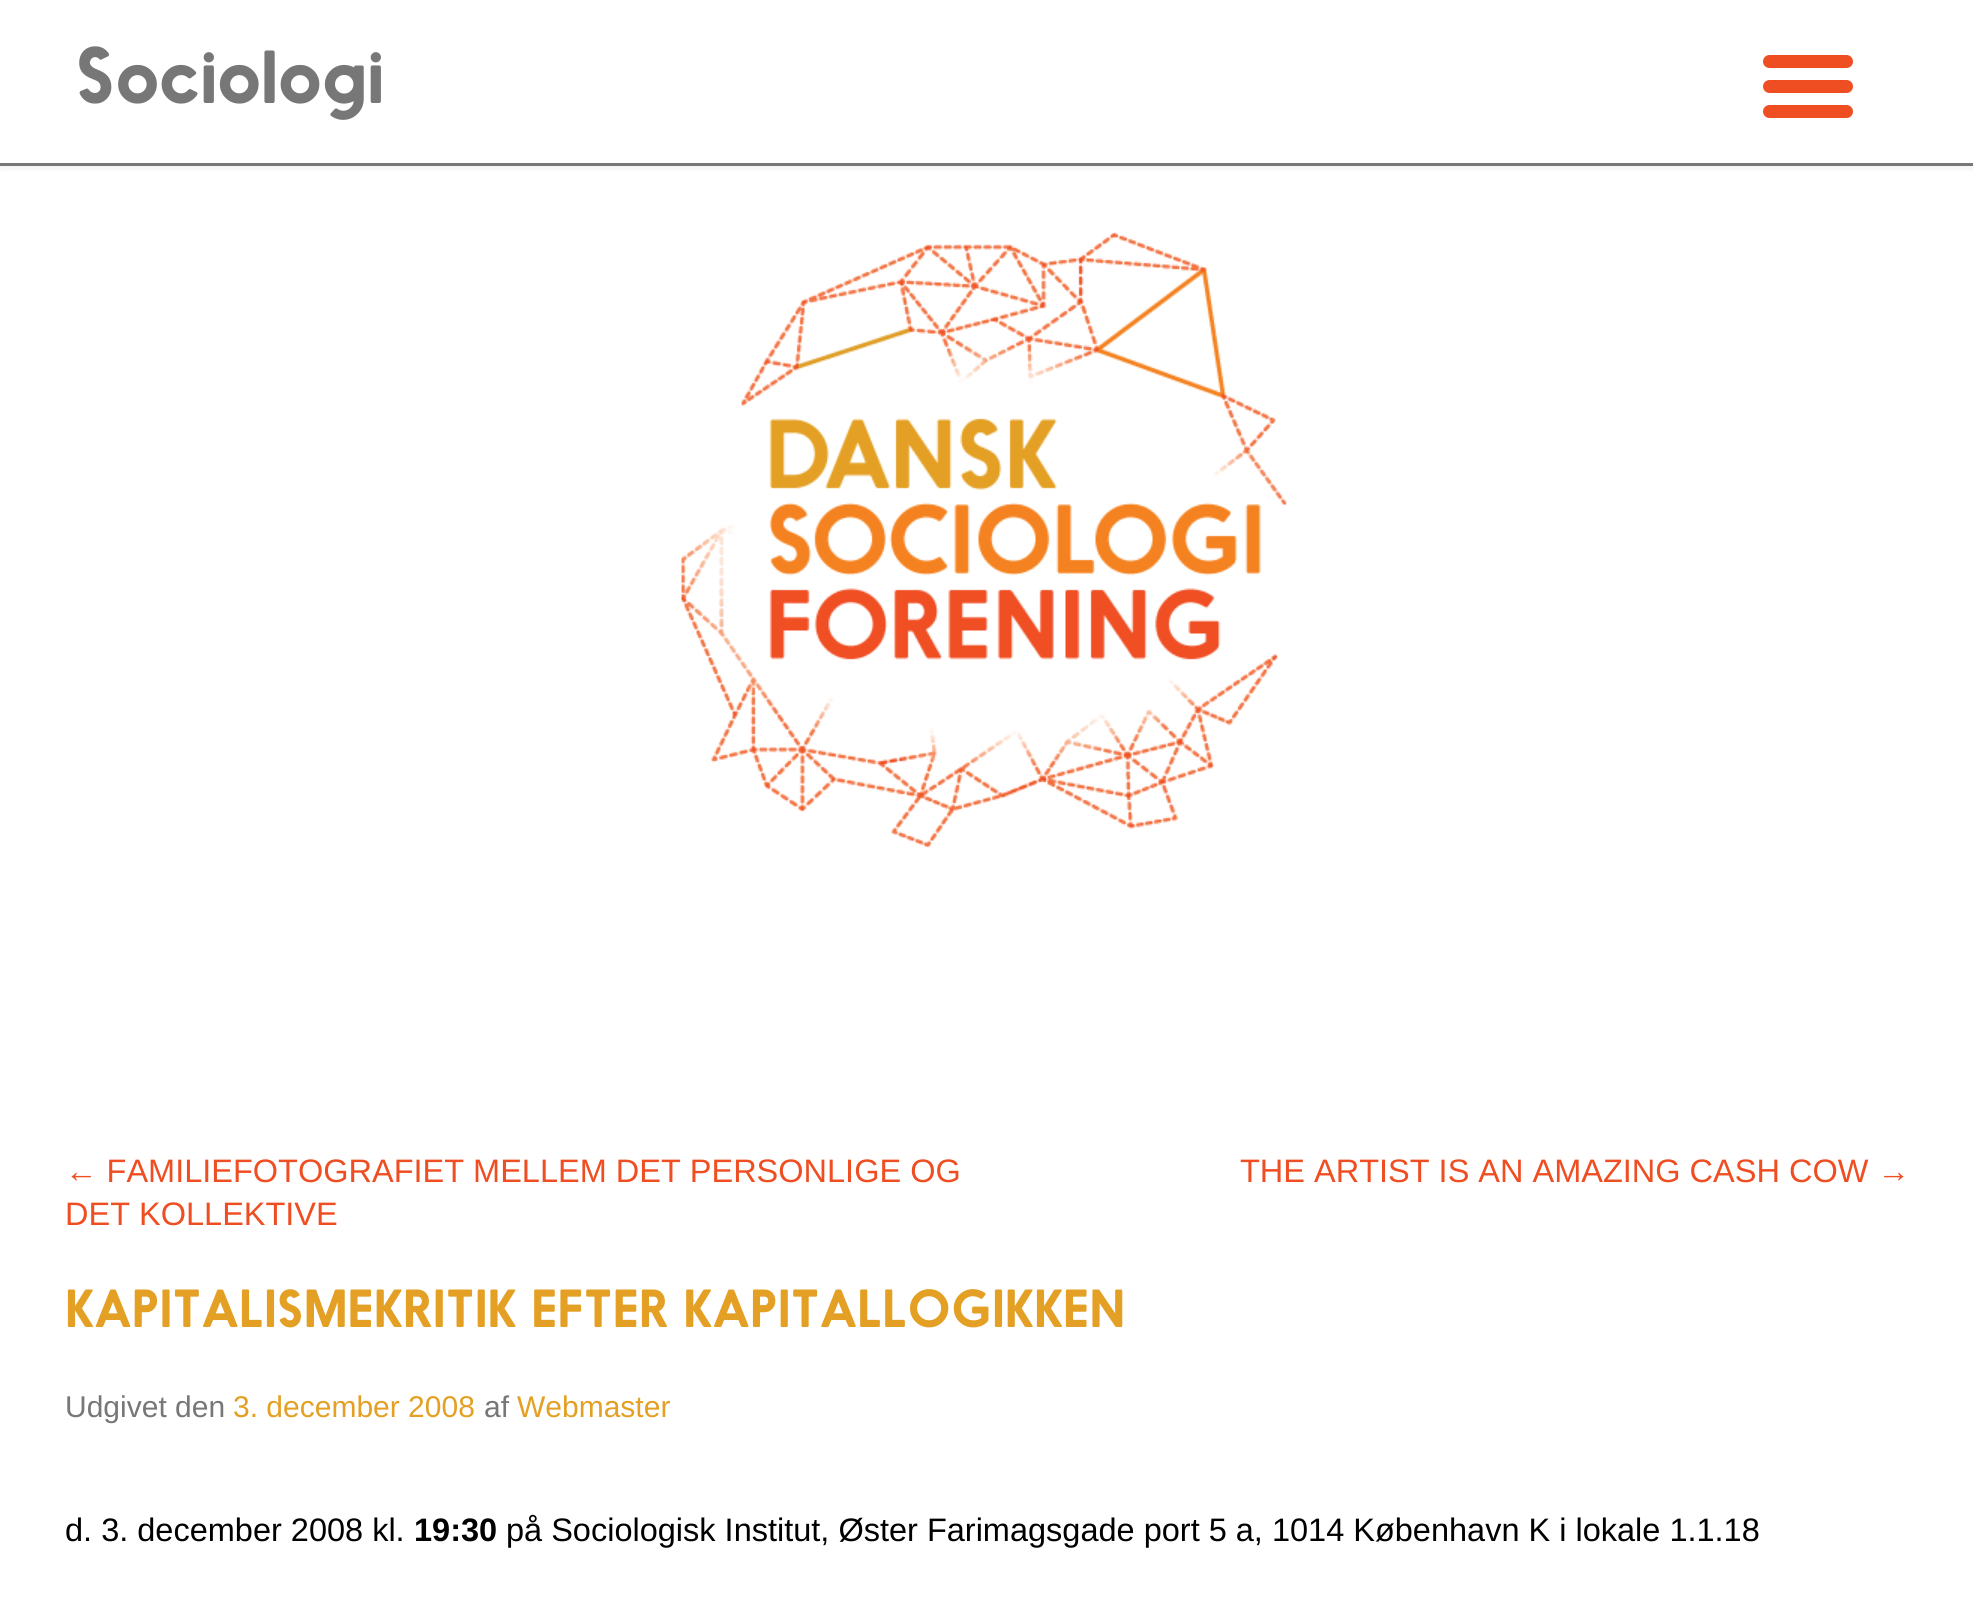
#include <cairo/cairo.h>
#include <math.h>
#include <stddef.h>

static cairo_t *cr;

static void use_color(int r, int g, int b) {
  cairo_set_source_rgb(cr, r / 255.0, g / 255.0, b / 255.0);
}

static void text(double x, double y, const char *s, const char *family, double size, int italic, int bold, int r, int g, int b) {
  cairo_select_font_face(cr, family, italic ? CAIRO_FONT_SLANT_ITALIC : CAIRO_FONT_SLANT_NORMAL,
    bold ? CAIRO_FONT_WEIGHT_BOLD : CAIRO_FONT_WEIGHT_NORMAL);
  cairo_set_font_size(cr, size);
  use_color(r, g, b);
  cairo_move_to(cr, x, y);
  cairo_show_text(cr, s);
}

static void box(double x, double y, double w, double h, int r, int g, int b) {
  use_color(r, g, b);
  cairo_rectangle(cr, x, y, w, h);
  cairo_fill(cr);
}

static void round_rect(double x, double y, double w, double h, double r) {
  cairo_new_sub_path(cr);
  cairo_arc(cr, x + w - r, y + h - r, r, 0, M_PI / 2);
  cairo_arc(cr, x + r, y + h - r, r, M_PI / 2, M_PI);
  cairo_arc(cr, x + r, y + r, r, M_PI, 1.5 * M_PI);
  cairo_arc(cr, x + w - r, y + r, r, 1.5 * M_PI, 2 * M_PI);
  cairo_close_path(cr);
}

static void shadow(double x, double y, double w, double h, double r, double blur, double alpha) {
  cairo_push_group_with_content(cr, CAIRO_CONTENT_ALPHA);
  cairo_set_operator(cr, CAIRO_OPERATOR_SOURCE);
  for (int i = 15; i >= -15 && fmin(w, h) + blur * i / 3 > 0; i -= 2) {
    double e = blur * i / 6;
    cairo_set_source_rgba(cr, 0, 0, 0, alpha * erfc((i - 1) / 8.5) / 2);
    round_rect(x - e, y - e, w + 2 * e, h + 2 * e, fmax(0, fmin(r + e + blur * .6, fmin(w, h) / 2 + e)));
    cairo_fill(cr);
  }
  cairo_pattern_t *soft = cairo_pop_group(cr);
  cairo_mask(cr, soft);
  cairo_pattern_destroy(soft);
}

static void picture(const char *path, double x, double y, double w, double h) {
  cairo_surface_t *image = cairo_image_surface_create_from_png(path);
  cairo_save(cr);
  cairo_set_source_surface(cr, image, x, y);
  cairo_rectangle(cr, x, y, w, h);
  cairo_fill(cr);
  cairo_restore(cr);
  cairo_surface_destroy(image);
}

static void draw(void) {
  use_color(255, 255, 255);
  cairo_paint(cr);
  cairo_save(cr);
  cairo_rectangle(cr, 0, 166, 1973, 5);
  cairo_clip(cr);
  use_color(0, 0, 0);
  shadow(0, 3, 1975, 165, 0, 6, 0.07);
  cairo_restore(cr);
  box(0, 163, 1973, 3, 119, 119, 119);
  picture("img_01.png", 681, 232, 606, 616);
  use_color(239, 78, 34);
  round_rect(1763, 80, 90, 13, 6.5);
  cairo_fill(cr);
  round_rect(1763, 55, 90, 13, 6.5);
  cairo_fill(cr);
  round_rect(1763, 105, 90, 13, 6.5);
  cairo_fill(cr);
  text(75, 103, "Sociologi", "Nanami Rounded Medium", 75, 0, 0, 119, 119, 119);
  text(65, 1182, "← FAMILIEFOTOGRAFIET MELLEM DET PERSONLIGE OG", "Liberation Sans", 32.5, 0, 0, 239, 78, 34);
  text(65, 1225, "DET KOLLEKTIVE", "Liberation Sans", 32.5, 0, 0, 239, 78, 34);
  text(1240, 1182, "THE ARTIST IS AN AMAZING CASH COW →", "Liberation Sans", 32.5, 0, 0, 239, 78, 34);
  text(65, 1327, "KAPITALISMEKRITIK EFTER KAPITALLOGIKKEN", "Nanami Rounded Medium", 50, 0, 0, 228, 160, 36);
  text(65, 1417, "Udgivet den", "Liberation Sans", 30, 0, 0, 119, 119, 119);
  text(233, 1417, "3. december 2008", "Liberation Sans", 30, 0, 0, 228, 160, 36);
  text(484, 1417, "af", "Liberation Sans", 30, 0, 0, 119, 119, 119);
  text(517, 1417, "Webmaster", "Liberation Sans", 30, 0, 0, 228, 160, 36);
  text(65, 1541, "d. 3. december 2008 kl.", "Liberation Sans", 32.5, 0, 0, 0, 0, 0);
  text(414, 1541, "19:30", "Liberation Sans", 32.5, 0, 1, 0, 0, 0);
  text(506, 1541, "på Sociologisk Institut, Øster Farimagsgade port 5 a, 1014 København K i lokale 1.1.18", "Liberation Sans", 32.5, 0, 0, 0, 0, 0);
}

int main(void) {
  cairo_surface_t *surface = cairo_image_surface_create(CAIRO_FORMAT_RGB24, 1973, 1598);
  cr = cairo_create(surface);
  cairo_font_options_t *options = cairo_font_options_create();
  cairo_font_options_set_hint_metrics(options, CAIRO_HINT_METRICS_OFF);
  cairo_font_options_set_hint_style(options, CAIRO_HINT_STYLE_NONE);
  cairo_set_font_options(cr, options);
  cairo_set_miter_limit(cr, 4);
  draw();
  cairo_surface_write_to_png(surface, "out.png");
  cairo_font_options_destroy(options);
  cairo_destroy(cr);
  cairo_surface_destroy(surface);
  return 0;
}
